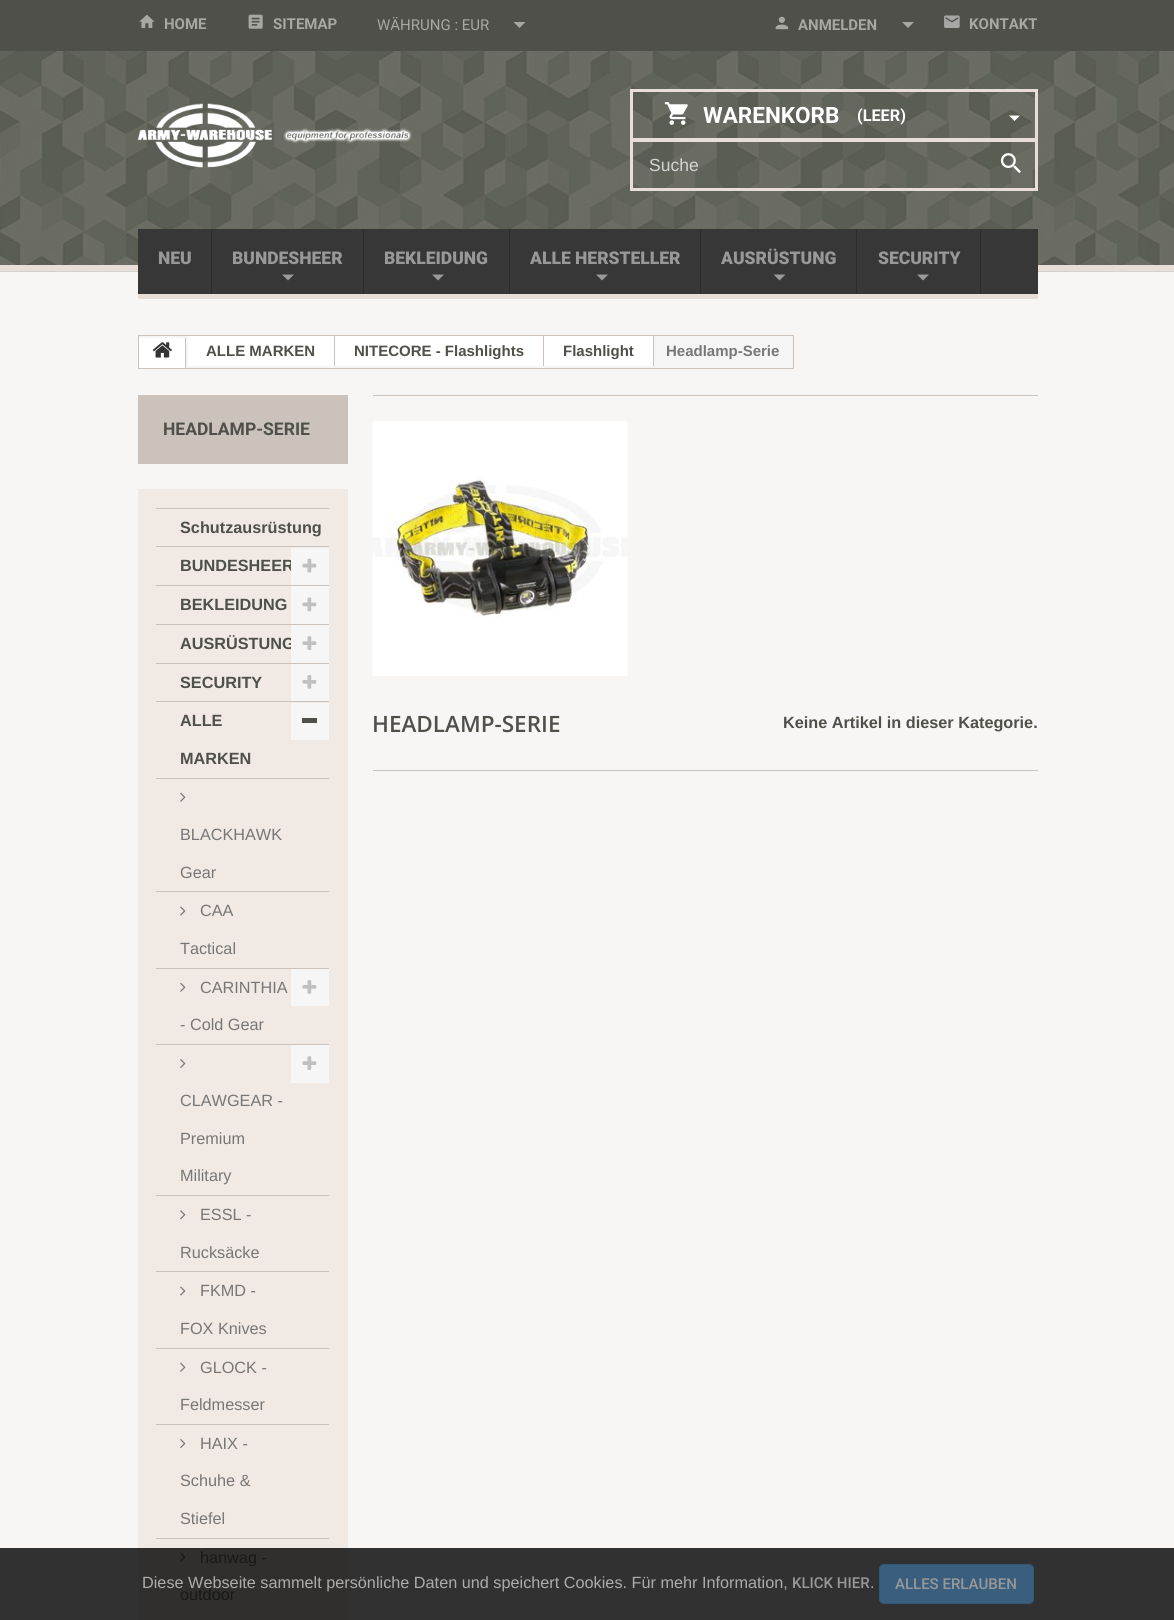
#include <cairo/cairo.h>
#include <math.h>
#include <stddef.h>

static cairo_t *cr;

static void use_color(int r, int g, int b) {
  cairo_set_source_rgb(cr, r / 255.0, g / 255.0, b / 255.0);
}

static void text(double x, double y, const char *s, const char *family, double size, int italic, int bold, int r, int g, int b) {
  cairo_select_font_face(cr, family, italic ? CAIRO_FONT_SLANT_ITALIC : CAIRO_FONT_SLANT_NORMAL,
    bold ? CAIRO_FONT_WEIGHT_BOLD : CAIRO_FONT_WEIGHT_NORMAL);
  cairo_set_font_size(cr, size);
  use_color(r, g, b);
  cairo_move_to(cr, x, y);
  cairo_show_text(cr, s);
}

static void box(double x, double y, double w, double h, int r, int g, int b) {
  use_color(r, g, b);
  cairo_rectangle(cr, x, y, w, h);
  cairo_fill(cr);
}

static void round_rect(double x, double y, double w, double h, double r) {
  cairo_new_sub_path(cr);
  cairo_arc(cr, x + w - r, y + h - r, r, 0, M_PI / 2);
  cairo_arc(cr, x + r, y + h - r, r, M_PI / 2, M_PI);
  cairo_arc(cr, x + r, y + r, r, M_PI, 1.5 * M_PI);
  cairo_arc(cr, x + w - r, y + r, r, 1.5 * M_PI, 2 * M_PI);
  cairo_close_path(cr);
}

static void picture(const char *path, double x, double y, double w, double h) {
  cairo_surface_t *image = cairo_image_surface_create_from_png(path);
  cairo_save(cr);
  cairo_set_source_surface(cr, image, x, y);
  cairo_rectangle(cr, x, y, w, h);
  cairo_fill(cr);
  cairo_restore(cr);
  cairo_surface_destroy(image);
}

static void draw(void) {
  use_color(248, 246, 244);
  cairo_paint(cr);
  picture("img_01.png", 0, 51, 1174, 221);
  box(0, 265, 1174, 6, 233, 222, 215);
  box(0, 0, 1174, 51, 78, 80, 73);
  use_color(167, 168, 164);
  cairo_new_path(cr);
  cairo_move_to(cr, 513.5, 22);
  cairo_line_to(cr, 519.5, 28);
  cairo_line_to(cr, 525.5, 22);
  cairo_close_path(cr);
  cairo_fill(cr);
  picture("img_02.png", 139, 14, 16, 14);
  picture("img_03.png", 248, 14, 15, 15);
  picture("img_04.png", 944, 15, 16, 13);
  picture("img_05.png", 775, 16, 14, 14);
  cairo_new_path(cr);
  cairo_move_to(cr, 902, 22);
  cairo_line_to(cr, 908, 28);
  cairo_line_to(cr, 914, 22);
  cairo_close_path(cr);
  cairo_fill(cr);
  picture("img_06.png", 137, 103, 275, 65);
  cairo_rectangle(cr, 631.5, 90.5, 405, 49);
  use_color(233, 222, 215);
  cairo_set_line_width(cr, 3);
  cairo_stroke(cr);
  picture("img_07.png", 664, 102, 24, 23);
  use_color(255, 255, 255);
  cairo_new_path(cr);
  cairo_move_to(cr, 1009, 115.5);
  cairo_line_to(cr, 1014.5, 121);
  cairo_line_to(cr, 1020, 115.5);
  cairo_close_path(cr);
  cairo_fill(cr);
  cairo_rectangle(cr, 631.5, 140.5, 405, 49);
  use_color(233, 222, 215);
  cairo_stroke(cr);
  picture("img_08.png", 1000, 153, 21, 20);
  box(138, 229, 900, 65, 55, 55, 55);
  box(138, 294, 900, 5, 233, 222, 215);
  box(211, 229, 1, 65, 44, 44, 44);
  box(363, 229, 1, 65, 44, 44, 44);
  use_color(155, 155, 155);
  cairo_new_path(cr);
  cairo_move_to(cr, 282, 274.5);
  cairo_line_to(cr, 288, 280.5);
  cairo_line_to(cr, 294, 274.5);
  cairo_close_path(cr);
  cairo_fill(cr);
  box(509, 229, 1, 65, 44, 44, 44);
  use_color(155, 155, 155);
  cairo_new_path(cr);
  cairo_move_to(cr, 432, 274.5);
  cairo_line_to(cr, 438, 280.5);
  cairo_line_to(cr, 444, 274.5);
  cairo_close_path(cr);
  cairo_fill(cr);
  box(700, 229, 1, 65, 44, 44, 44);
  use_color(155, 155, 155);
  cairo_new_path(cr);
  cairo_move_to(cr, 596, 274.5);
  cairo_line_to(cr, 602, 280.5);
  cairo_line_to(cr, 608, 274.5);
  cairo_close_path(cr);
  cairo_fill(cr);
  box(856, 229, 1, 65, 44, 44, 44);
  use_color(155, 155, 155);
  cairo_new_path(cr);
  cairo_move_to(cr, 773.5, 274.5);
  cairo_line_to(cr, 779.5, 280.5);
  cairo_line_to(cr, 785.5, 274.5);
  cairo_close_path(cr);
  cairo_fill(cr);
  box(980, 229, 1, 65, 44, 44, 44);
  use_color(155, 155, 155);
  cairo_new_path(cr);
  cairo_move_to(cr, 917, 274.5);
  cairo_line_to(cr, 923, 280.5);
  cairo_line_to(cr, 929, 274.5);
  cairo_close_path(cr);
  cairo_fill(cr);
  box(0, 1548, 1174, 72, 50, 49, 49);
  use_color(245, 245, 245);
  cairo_rectangle(cr, 138.5, 335.5, 655, 33);
  cairo_fill_preserve(cr);
  use_color(202, 194, 187);
  cairo_set_line_width(cr, 1);
  cairo_stroke(cr);
  box(139, 338, 46, 30, 255, 255, 255);
  box(185, 338, 1, 30, 202, 194, 187);
  picture("img_09.png", 152, 342, 20, 16);
  box(188, 336, 146, 30, 255, 255, 255);
  box(334, 336, 1, 30, 202, 194, 187);
  box(335, 336, 208, 30, 255, 255, 255);
  box(543, 336, 1, 30, 202, 194, 187);
  box(544, 336, 109, 30, 255, 255, 255);
  box(653, 336, 1, 30, 202, 194, 187);
  box(138, 395, 210, 69, 202, 194, 187);
  box(138, 489, 210, 1059, 240, 233, 228);
  box(138, 1548, 210, 72, 48, 47, 46);
  box(156, 508, 173, 1, 202, 194, 187);
  box(156, 546, 173, 1, 202, 194, 187);
  box(156, 585, 173, 1, 202, 194, 187);
  box(156, 624, 173, 1, 202, 194, 187);
  box(291, 586, 38, 38, 246, 246, 246);
  picture("img_11.png", 302, 597, 15, 15);
  box(156, 663, 173, 1, 202, 194, 187);
  box(156, 701, 173, 1, 202, 194, 187);
  box(291, 664, 38, 37, 246, 246, 246);
  picture("img_13.png", 302, 675, 15, 14);
  box(156, 778, 173, 1, 202, 194, 187);
  box(291, 703, 38, 37, 246, 246, 246);
  box(302, 718, 15, 5, 78, 80, 73);
  box(156, 891, 173, 1, 202, 194, 187);
  picture("img_14.png", 180, 792, 6, 10);
  box(156, 968, 173, 1, 202, 194, 187);
  picture("img_15.png", 180, 906, 6, 10);
  box(156, 1044, 173, 1, 202, 194, 187);
  picture("img_14.png", 180, 982, 6, 10);
  box(291, 969, 38, 37, 246, 246, 246);
  picture("img_13.png", 302, 980, 15, 14);
  box(291, 1045, 38, 38, 246, 246, 246);
  picture("img_12.png", 302, 1056, 15, 14);
  box(156, 1195, 173, 1, 202, 194, 187);
  picture("img_16.png", 180, 1059, 6, 9);
  box(156, 1271, 173, 1, 202, 194, 187);
  picture("img_17.png", 180, 1210, 6, 10);
  box(156, 1348, 173, 1, 202, 194, 187);
  picture("img_15.png", 180, 1286, 6, 10);
  box(156, 1424, 173, 1, 202, 194, 187);
  picture("img_14.png", 180, 1362, 6, 10);
  box(156, 1538, 173, 1, 202, 194, 187);
  picture("img_16.png", 180, 1439, 6, 9);
  picture("img_18.png", 180, 1552, 6, 10);
  box(373, 395, 665, 1, 202, 194, 187);
  picture("img_19.png", 372, 421, 256, 255);
  box(373, 770, 665, 1, 202, 194, 187);
  use_color(58, 94, 125);
  round_rect(879.5, 1564.5, 154, 39, 4.5);
  cairo_fill_preserve(cr);
  use_color(51, 88, 119);
  cairo_stroke(cr);
  text(377, 30, "WÄHRUNG : EUR", "Roboto", 15, 0, 0, 167, 168, 164);
  text(164, 29, "HOME", "Roboto", 15, 0, 1, 167, 168, 164);
  text(273, 29, "SITEMAP", "Roboto", 15, 0, 1, 167, 168, 164);
  text(969, 29, "KONTAKT", "Roboto", 15, 0, 1, 167, 168, 164);
  text(798, 30, "ANMELDEN", "Roboto", 15, 0, 1, 167, 168, 164);
  text(703, 123, "WARENKORB", "Roboto", 22.5, 0, 1, 255, 255, 255);
  text(857, 121, "(LEER)", "Roboto", 16.25, 0, 1, 255, 255, 255);
  text(649, 171, "Suche", "Liberation Sans", 17.5, 0, 0, 212, 212, 210);
  text(158, 264, "NEU", "Roboto Black", 17.5, 0, 0, 152, 152, 152);
  text(232, 264, "BUNDESHEER", "Roboto Black", 17.5, 0, 0, 152, 152, 152);
  text(384, 264, "BEKLEIDUNG", "Roboto Black", 17.5, 0, 0, 152, 152, 152);
  text(530, 264, "ALLE HERSTELLER", "Roboto Black", 17.5, 0, 0, 152, 152, 152);
  text(721, 264, "AUSRÜSTUNG", "Roboto Black", 17.5, 0, 0, 152, 152, 152);
  text(878, 264, "SECURITY", "Roboto Black", 17.5, 0, 0, 152, 152, 152);
  text(206, 356, "ALLE MARKEN", "Liberation Sans", 15, 0, 1, 78, 80, 73);
  text(354, 356, "NITECORE - Flashlights", "Liberation Sans", 15, 0, 1, 78, 80, 73);
  text(563, 356, "Flashlight", "Liberation Sans", 15, 0, 1, 78, 80, 73);
  text(666, 356, "Headlamp-Serie", "Liberation Sans", 15, 0, 1, 119, 119, 119);
  text(163, 435, "HEADLAMP-SERIE", "Roboto", 17.5, 0, 1, 78, 80, 73);
  text(180, 533, "Schutzausrüstung", "Liberation Sans", 16.25, 0, 1, 78, 80, 73);
  text(180, 571, "BUNDESHEER", "Liberation Sans", 16.25, 0, 1, 78, 80, 73);
  box(291, 548, 38, 37, 246, 246, 246);
  picture("img_10.png", 302, 558, 15, 15);
  text(180, 610, "BEKLEIDUNG", "Liberation Sans", 16.25, 0, 1, 78, 80, 73);
  text(180, 649, "AUSRÜSTUNG", "Liberation Sans", 16.25, 0, 1, 78, 80, 73);
  box(291, 625, 38, 38, 246, 246, 246);
  picture("img_12.png", 302, 636, 15, 14);
  text(180, 688, "SECURITY", "Liberation Sans", 16.25, 0, 1, 78, 80, 73);
  text(180, 726, "ALLE", "Liberation Sans", 16.25, 0, 1, 78, 80, 73);
  text(180, 764, "MARKEN", "Liberation Sans", 16.25, 0, 1, 78, 80, 73);
  text(180, 840, "BLACKHAWK", "Liberation Sans", 16.25, 0, 0, 119, 119, 119);
  text(180, 878, "Gear", "Liberation Sans", 16.25, 0, 0, 119, 119, 119);
  text(200, 916, "CAA", "Liberation Sans", 16.25, 0, 0, 119, 119, 119);
  text(180, 954, "Tactical", "Liberation Sans", 16.25, 0, 0, 119, 119, 119);
  text(200, 993, "CARINTHIA", "Liberation Sans", 16.25, 0, 0, 119, 119, 119);
  text(180, 1030, "- Cold Gear", "Liberation Sans", 16.25, 0, 0, 119, 119, 119);
  text(180, 1106, "CLAWGEAR -", "Liberation Sans", 16.25, 0, 0, 119, 119, 119);
  text(180, 1144, "Premium", "Liberation Sans", 16.25, 0, 0, 119, 119, 119);
  text(180, 1181, "Military", "Liberation Sans", 16.25, 0, 0, 119, 119, 119);
  text(200, 1220, "ESSL -", "Liberation Sans", 16.25, 0, 0, 119, 119, 119);
  text(180, 1258, "Rucksäcke", "Liberation Sans", 16.25, 0, 0, 119, 119, 119);
  text(200, 1296, "FKMD -", "Liberation Sans", 16.25, 0, 0, 119, 119, 119);
  text(180, 1334, "FOX Knives", "Liberation Sans", 16.25, 0, 0, 119, 119, 119);
  text(200, 1373, "GLOCK -", "Liberation Sans", 16.25, 0, 0, 119, 119, 119);
  text(180, 1410, "Feldmesser", "Liberation Sans", 16.25, 0, 0, 119, 119, 119);
  text(200, 1449, "HAIX -", "Liberation Sans", 16.25, 0, 0, 119, 119, 119);
  text(180, 1486, "Schuhe &", "Liberation Sans", 16.25, 0, 0, 119, 119, 119);
  text(180, 1524, "Stiefel", "Liberation Sans", 16.25, 0, 0, 119, 119, 119);
  text(200, 1563, "hanwag -", "Liberation Sans", 16.25, 0, 0, 24, 24, 24);
  text(180, 1600, "outdoor", "Liberation Sans", 16.25, 0, 0, 24, 24, 24);
  text(372, 732, "HEADLAMP-SERIE", "Open Sans SemiBold", 22.5, 0, 0, 78, 80, 73);
  text(783, 728, "Keine Artikel in dieser Kategorie.", "Liberation Sans", 16.25, 0, 1, 78, 80, 73);
  text(142, 1588, "Diese Webseite sammelt persönliche Daten und speichert Cookies. Für mehr Information,", "Liberation Sans", 16.25, 0, 0, 173, 172, 172);
  text(792, 1588, "KLICK HIER", "Roboto Medium", 15, 0, 0, 152, 152, 152);
  text(870, 1588, ".", "Liberation Sans", 16.25, 0, 0, 173, 172, 172);
  text(895, 1589, "ALLES ERLAUBEN", "Roboto Medium", 15, 0, 0, 152, 152, 152);
}

int main(void) {
  cairo_surface_t *surface = cairo_image_surface_create(CAIRO_FORMAT_RGB24, 1174, 1620);
  cr = cairo_create(surface);
  cairo_font_options_t *options = cairo_font_options_create();
  cairo_font_options_set_hint_metrics(options, CAIRO_HINT_METRICS_OFF);
  cairo_font_options_set_hint_style(options, CAIRO_HINT_STYLE_NONE);
  cairo_set_font_options(cr, options);
  cairo_set_miter_limit(cr, 4);
  draw();
  cairo_surface_write_to_png(surface, "out.png");
  cairo_font_options_destroy(options);
  cairo_destroy(cr);
  cairo_surface_destroy(surface);
  return 0;
}
